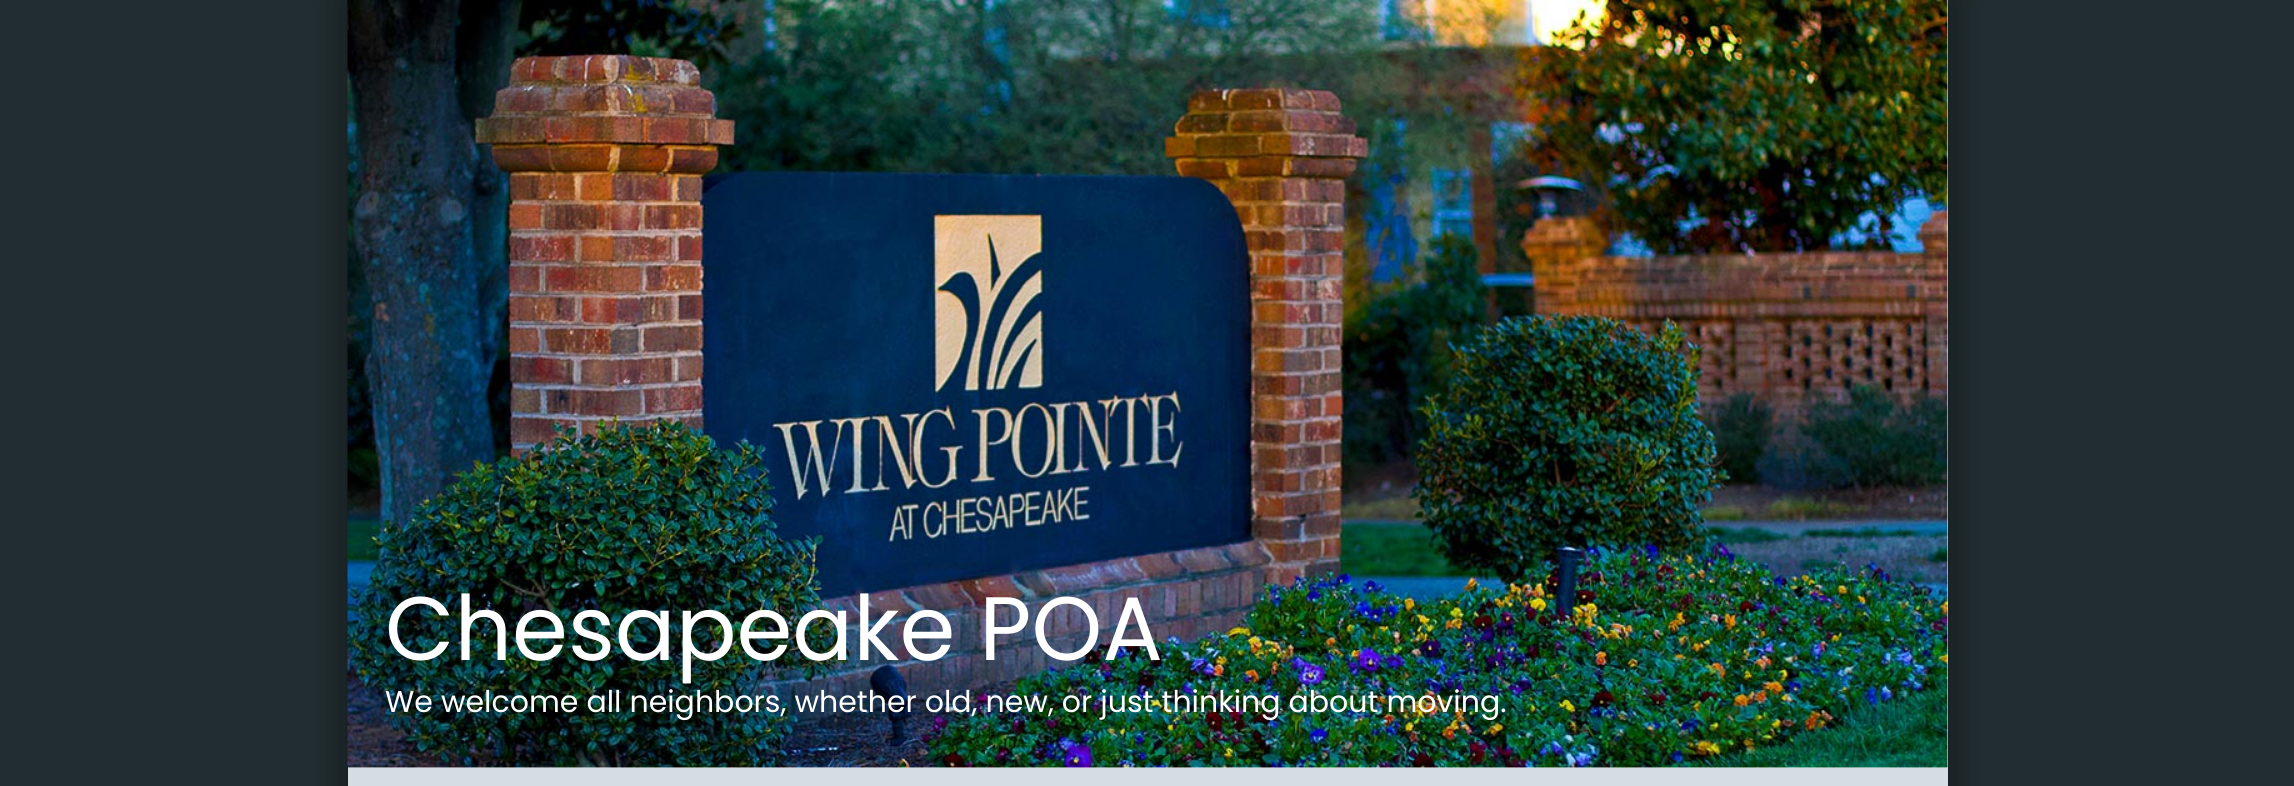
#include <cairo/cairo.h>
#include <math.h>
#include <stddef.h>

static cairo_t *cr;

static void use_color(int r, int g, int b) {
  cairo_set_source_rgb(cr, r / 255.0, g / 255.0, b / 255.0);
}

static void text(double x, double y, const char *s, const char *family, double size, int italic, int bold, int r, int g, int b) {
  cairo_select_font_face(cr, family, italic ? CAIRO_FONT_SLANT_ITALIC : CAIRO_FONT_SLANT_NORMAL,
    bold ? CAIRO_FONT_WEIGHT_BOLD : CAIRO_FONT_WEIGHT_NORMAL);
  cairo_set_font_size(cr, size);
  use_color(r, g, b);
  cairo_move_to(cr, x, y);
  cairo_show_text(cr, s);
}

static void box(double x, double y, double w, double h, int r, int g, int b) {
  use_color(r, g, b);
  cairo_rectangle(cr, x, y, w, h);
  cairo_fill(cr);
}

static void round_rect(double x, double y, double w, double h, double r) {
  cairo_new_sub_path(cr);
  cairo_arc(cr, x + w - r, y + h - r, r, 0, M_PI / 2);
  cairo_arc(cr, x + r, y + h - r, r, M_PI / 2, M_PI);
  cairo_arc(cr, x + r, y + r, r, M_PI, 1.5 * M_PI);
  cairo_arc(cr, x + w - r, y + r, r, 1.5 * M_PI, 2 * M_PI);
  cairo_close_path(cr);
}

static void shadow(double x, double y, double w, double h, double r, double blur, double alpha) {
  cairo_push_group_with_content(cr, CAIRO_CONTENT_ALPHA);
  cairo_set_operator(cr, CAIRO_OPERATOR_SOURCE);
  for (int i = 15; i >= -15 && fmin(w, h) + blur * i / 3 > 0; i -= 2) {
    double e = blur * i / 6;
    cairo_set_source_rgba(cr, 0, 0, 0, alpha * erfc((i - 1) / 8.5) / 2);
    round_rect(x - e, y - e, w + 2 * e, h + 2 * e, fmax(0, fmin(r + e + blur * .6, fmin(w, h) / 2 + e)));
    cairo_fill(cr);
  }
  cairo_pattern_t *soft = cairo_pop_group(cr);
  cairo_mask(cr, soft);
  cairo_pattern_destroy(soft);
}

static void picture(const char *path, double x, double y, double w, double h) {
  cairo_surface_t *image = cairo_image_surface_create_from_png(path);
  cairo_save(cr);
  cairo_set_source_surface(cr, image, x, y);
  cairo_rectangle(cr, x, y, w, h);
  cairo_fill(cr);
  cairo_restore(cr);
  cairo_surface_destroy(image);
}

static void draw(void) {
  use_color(33, 45, 48);
  cairo_paint(cr);
  use_color(0, 0, 0);
  shadow(348, 0, 1600, 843, 0, 19, 0.5);
  box(348, 0, 1600, 768, 255, 255, 255);
  picture("img_01.png", 347, 0, 1601, 768);
  box(348, 768, 1600, 18, 211, 221, 226);
  text(385, 660, "Chesapeake POA", "Poppins", 90, 0, 0, 255, 255, 255);
  text(385, 712, "We welcome all neighbors, whether old, new, or just thinking about moving.", "Poppins", 30, 0, 0, 255, 255, 255);
}

int main(void) {
  cairo_surface_t *surface = cairo_image_surface_create(CAIRO_FORMAT_RGB24, 2294, 786);
  cr = cairo_create(surface);
  cairo_font_options_t *options = cairo_font_options_create();
  cairo_font_options_set_hint_metrics(options, CAIRO_HINT_METRICS_OFF);
  cairo_font_options_set_hint_style(options, CAIRO_HINT_STYLE_NONE);
  cairo_set_font_options(cr, options);
  cairo_set_miter_limit(cr, 4);
  draw();
  cairo_surface_write_to_png(surface, "out.png");
  cairo_font_options_destroy(options);
  cairo_destroy(cr);
  cairo_surface_destroy(surface);
  return 0;
}
